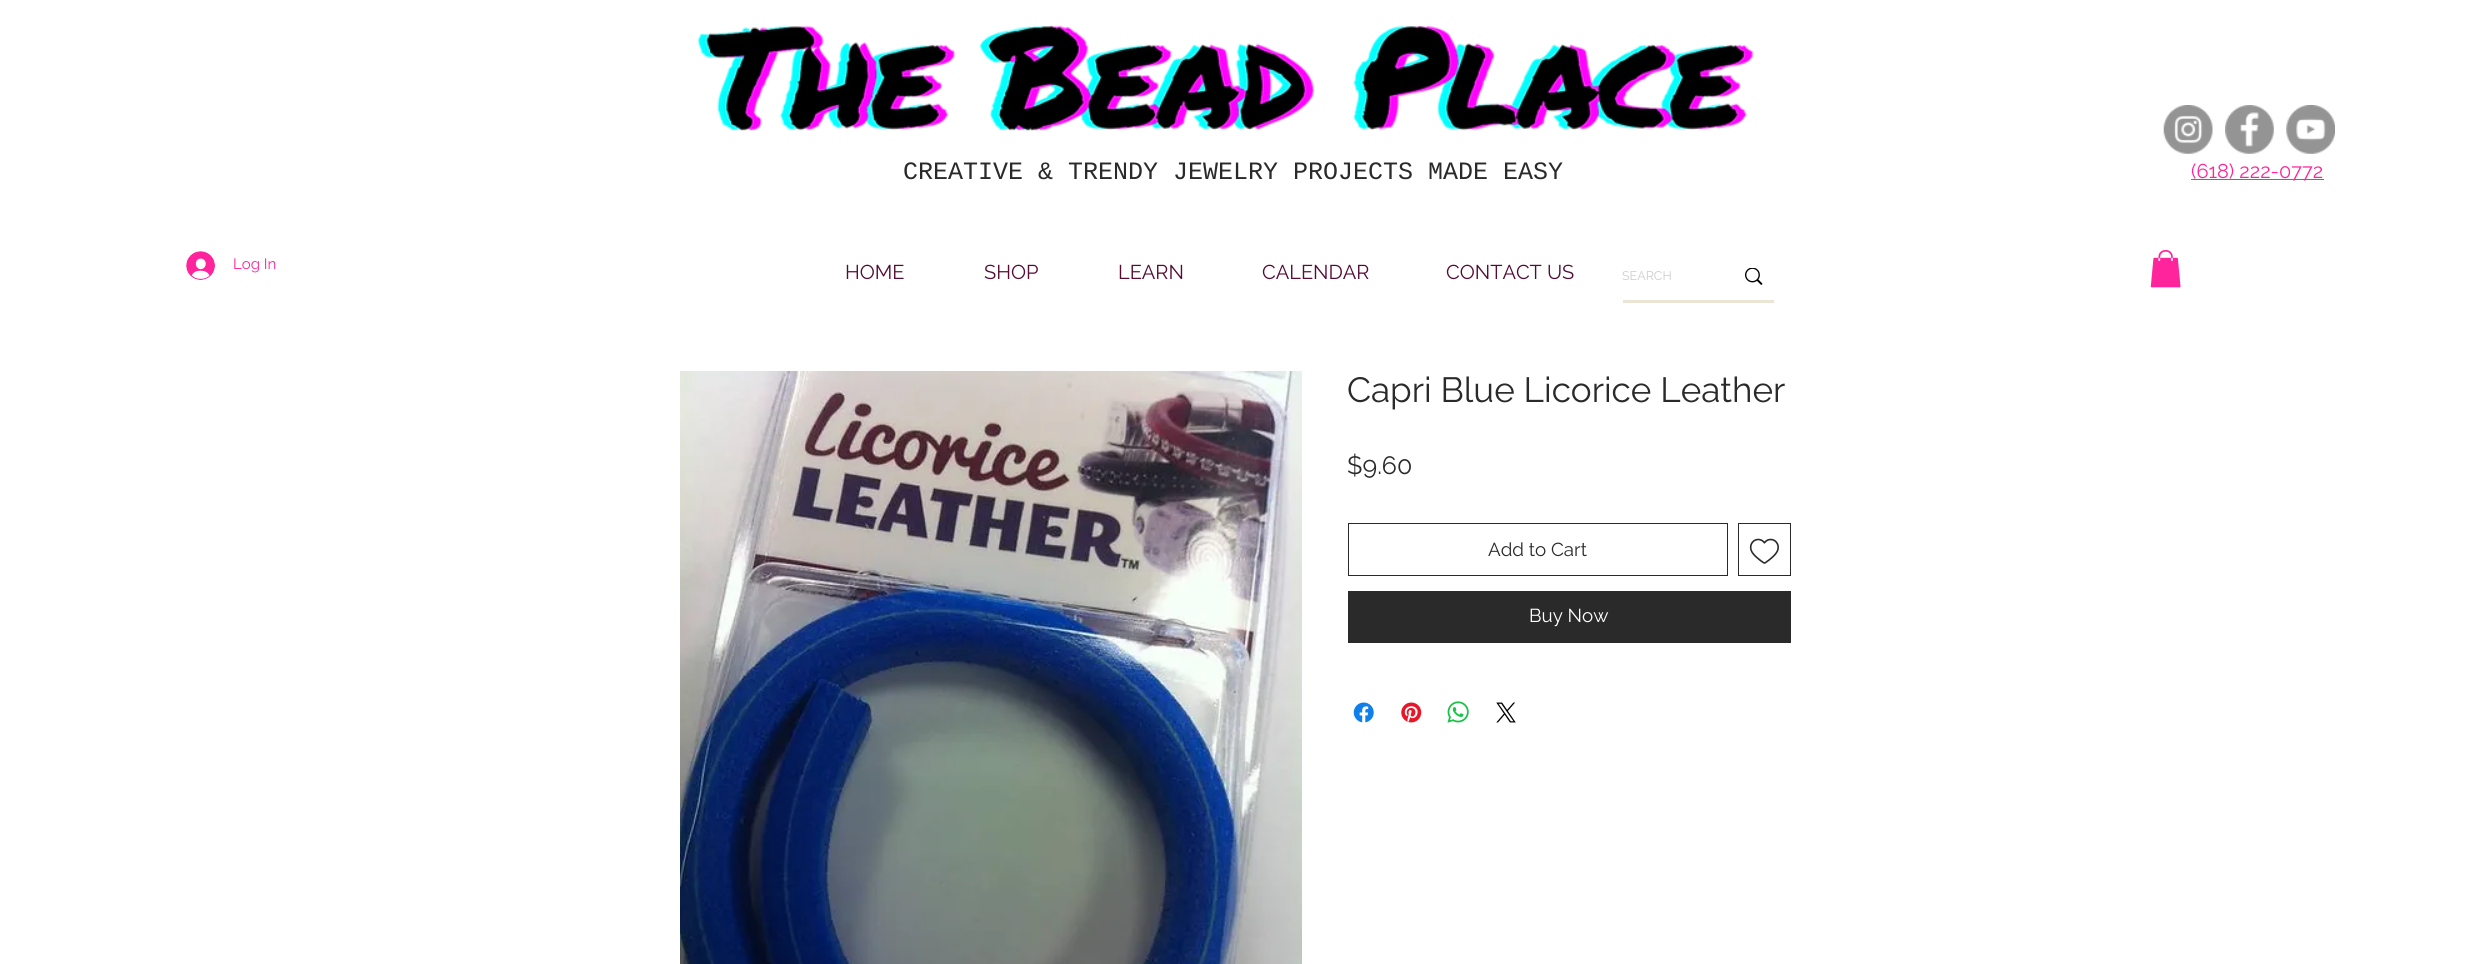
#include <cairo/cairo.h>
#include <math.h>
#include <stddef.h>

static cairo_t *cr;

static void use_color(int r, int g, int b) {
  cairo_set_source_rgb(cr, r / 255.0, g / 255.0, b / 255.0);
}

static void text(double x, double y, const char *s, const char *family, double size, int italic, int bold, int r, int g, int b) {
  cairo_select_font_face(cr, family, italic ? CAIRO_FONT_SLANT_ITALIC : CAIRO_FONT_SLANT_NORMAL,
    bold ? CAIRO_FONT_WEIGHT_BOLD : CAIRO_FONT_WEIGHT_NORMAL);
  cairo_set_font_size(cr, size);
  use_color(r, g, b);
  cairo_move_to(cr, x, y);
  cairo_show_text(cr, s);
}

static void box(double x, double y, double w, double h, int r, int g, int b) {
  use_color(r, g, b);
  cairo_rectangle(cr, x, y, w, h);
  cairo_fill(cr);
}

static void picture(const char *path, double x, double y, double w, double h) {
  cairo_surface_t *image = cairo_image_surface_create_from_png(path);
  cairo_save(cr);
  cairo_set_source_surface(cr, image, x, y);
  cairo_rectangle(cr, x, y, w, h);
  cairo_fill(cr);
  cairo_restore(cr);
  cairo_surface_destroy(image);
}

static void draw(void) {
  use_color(255, 255, 255);
  cairo_paint(cr);
  picture("img_01.png", 697, 25, 1057, 106);
  picture("img_02.png", 2163, 105, 50, 49);
  picture("img_03.png", 2225, 105, 49, 49);
  picture("img_04.png", 2286, 105, 49, 49);
  box(2191, 179, 133, 1, 255, 36, 156);
  picture("img_05.png", 186, 251, 29, 29);
  box(1623, 300, 151, 3, 235, 229, 214);
  picture("img_06.png", 1745, 268, 18, 17);
  picture("img_07.png", 2150, 250, 31, 38);
  picture("img_08.png", 680, 371, 622, 593);
  cairo_rectangle(cr, 1348.5, 523.5, 379, 52);
  use_color(42, 42, 42);
  cairo_set_line_width(cr, 1);
  cairo_stroke(cr);
  cairo_rectangle(cr, 1738.5, 523.5, 52, 52);
  cairo_stroke(cr);
  picture("img_09.png", 1749, 538, 30, 26);
  box(1348, 591, 443, 52, 42, 42, 42);
  picture("img_10.png", 1353, 702, 21, 21);
  picture("img_11.png", 1401, 702, 21, 21);
  picture("img_12.png", 1447, 701, 22, 22);
  picture("img_13.png", 1496, 702, 20, 21);
  text(903, 179, "CREATIVE & TRENDY JEWELRY PROJECTS MADE EASY", "Liberation Mono", 25, 0, 0, 42, 42, 42);
  text(2191, 178, "(618) 222-0772", "Raleway", 20, 0, 0, 255, 36, 156);
  text(233, 269, "Log In", "Raleway", 15, 0, 0, 255, 36, 156);
  text(845, 279, "HOME", "Raleway", 20, 0, 0, 85, 12, 52);
  text(984, 279, "SHOP", "Raleway", 20, 0, 0, 85, 12, 52);
  text(1118, 279, "LEARN", "Raleway", 20, 0, 0, 85, 12, 52);
  text(1262, 279, "CALENDAR", "Raleway", 20, 0, 0, 85, 12, 52);
  text(1446, 279, "CONTACT US", "Raleway", 20, 0, 0, 85, 12, 52);
  text(1622, 280, "SEARCH", "Raleway", 12.5, 0, 0, 204, 204, 204);
  text(1347, 402, "Capri Blue Licorice Leather", "Raleway", 35, 0, 0, 42, 42, 42);
  text(1347, 474, "$9.60", "Raleway", 25, 0, 0, 42, 42, 42);
  text(1488, 556, "Add to Cart", "Raleway", 18.75, 0, 0, 42, 42, 42);
  text(1529, 622, "Buy Now", "Raleway", 18.75, 0, 0, 255, 255, 255);
}

int main(void) {
  cairo_surface_t *surface = cairo_image_surface_create(CAIRO_FORMAT_RGB24, 2468, 964);
  cr = cairo_create(surface);
  cairo_font_options_t *options = cairo_font_options_create();
  cairo_font_options_set_hint_metrics(options, CAIRO_HINT_METRICS_OFF);
  cairo_font_options_set_hint_style(options, CAIRO_HINT_STYLE_NONE);
  cairo_set_font_options(cr, options);
  cairo_set_miter_limit(cr, 4);
  draw();
  cairo_surface_write_to_png(surface, "out.png");
  cairo_font_options_destroy(options);
  cairo_destroy(cr);
  cairo_surface_destroy(surface);
  return 0;
}
